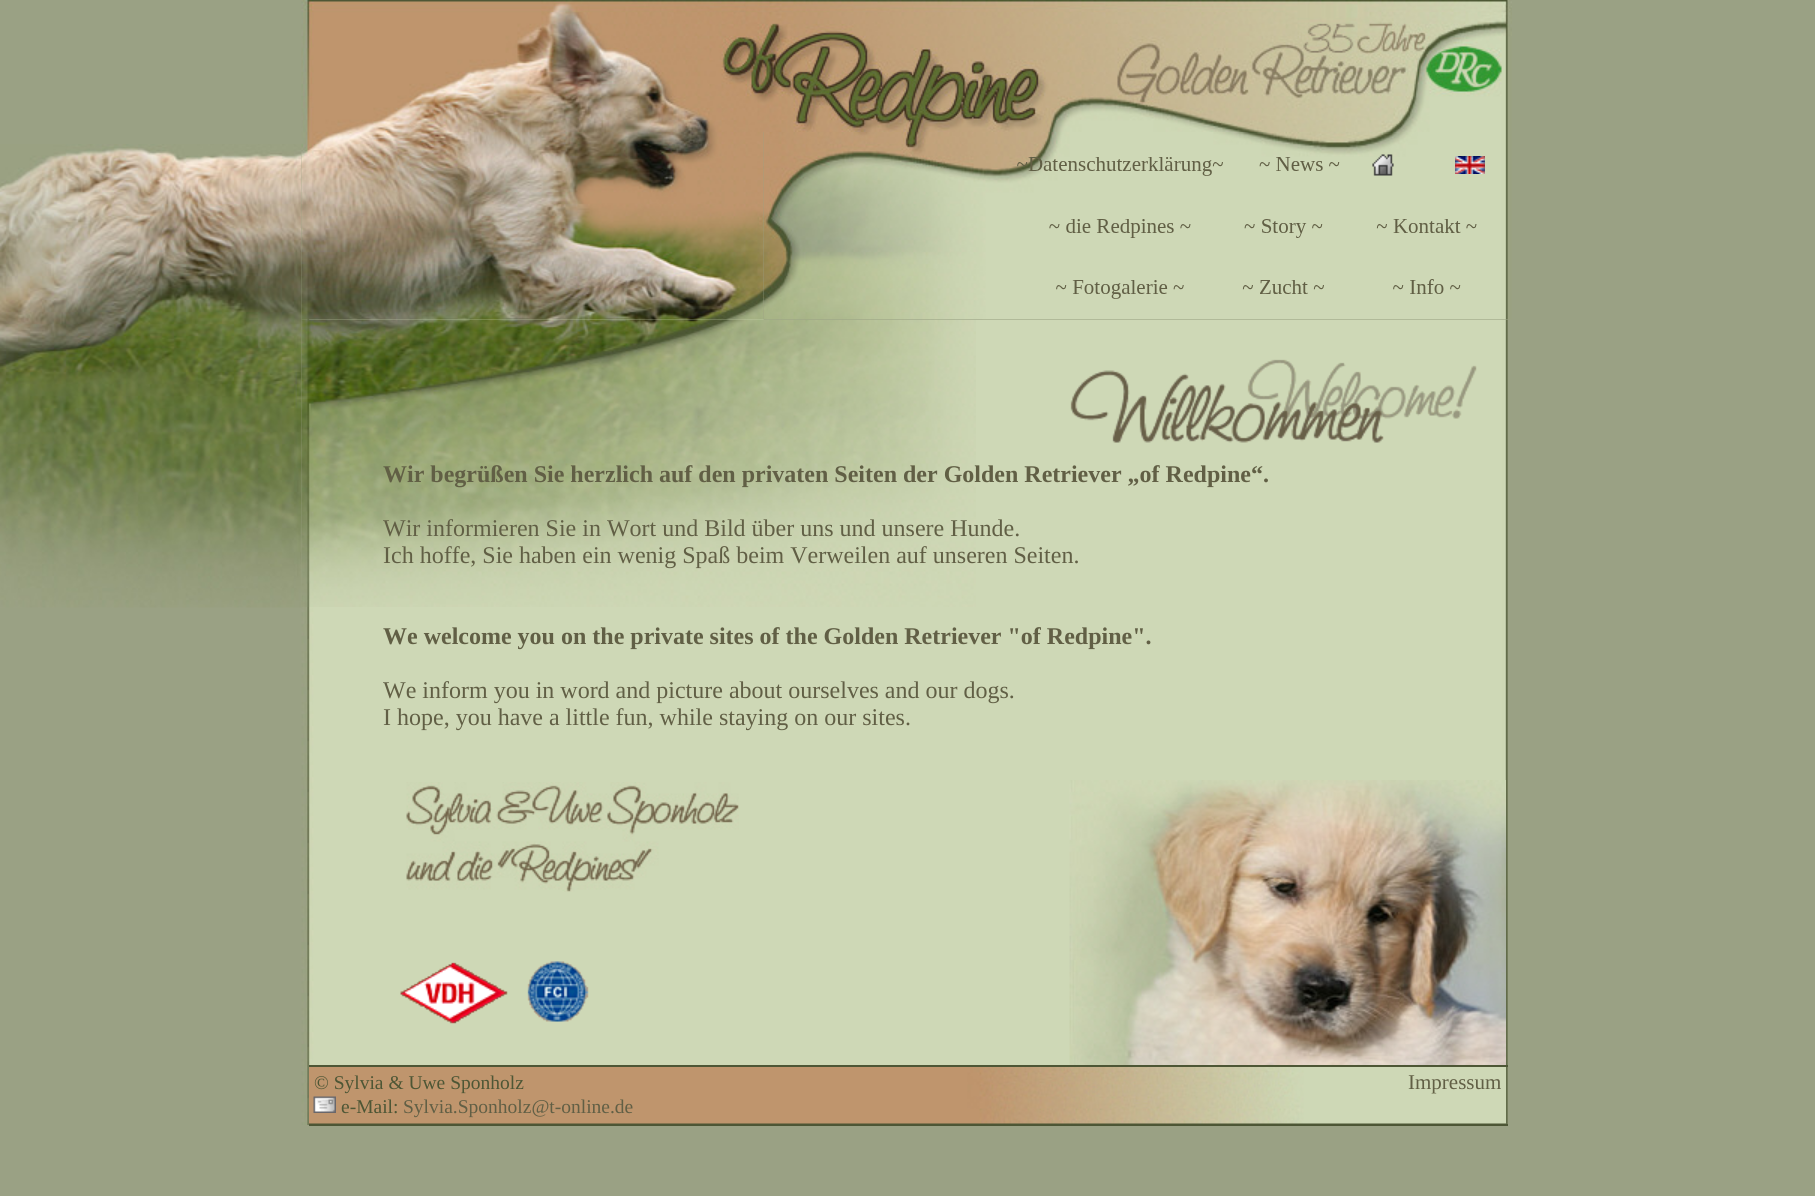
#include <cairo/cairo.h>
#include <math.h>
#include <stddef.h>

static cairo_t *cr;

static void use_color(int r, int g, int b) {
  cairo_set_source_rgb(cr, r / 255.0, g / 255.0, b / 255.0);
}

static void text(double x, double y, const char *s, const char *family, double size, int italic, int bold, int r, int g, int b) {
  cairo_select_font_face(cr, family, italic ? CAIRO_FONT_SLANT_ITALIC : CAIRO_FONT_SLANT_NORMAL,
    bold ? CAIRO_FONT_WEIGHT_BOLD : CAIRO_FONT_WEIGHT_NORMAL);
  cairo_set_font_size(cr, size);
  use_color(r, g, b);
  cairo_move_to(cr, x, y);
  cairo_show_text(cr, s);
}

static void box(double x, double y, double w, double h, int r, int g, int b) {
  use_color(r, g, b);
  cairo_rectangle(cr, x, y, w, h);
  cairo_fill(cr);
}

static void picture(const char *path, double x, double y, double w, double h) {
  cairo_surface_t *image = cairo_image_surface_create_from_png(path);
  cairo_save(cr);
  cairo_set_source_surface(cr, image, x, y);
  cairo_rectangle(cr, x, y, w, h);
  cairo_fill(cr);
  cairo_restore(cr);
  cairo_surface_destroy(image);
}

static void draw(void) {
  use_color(154, 161, 132);
  cairo_paint(cr);
  picture("img_01.png", 0, 144, 302, 464);
  picture("img_02.png", 301, 0, 1207, 1125);
  picture("img_03.png", 301, 0, 1211, 320);
  picture("img_05.png", 301, 319, 675, 288);
  picture("img_04.png", 763, 132, 745, 188);
  picture("img_06.png", 1069, 780, 437, 285);
  picture("img_07.png", 1070, 359, 407, 84);
  picture("img_08.png", 406, 782, 333, 110);
  picture("img_09.png", 400, 961, 189, 63);
  picture("img_10.png", 309, 1067, 1197, 57);
  picture("img_11.png", 313, 1096, 23, 17);
  box(309, 1065, 1199, 2, 77, 86, 53);
  box(309, 1124, 1199, 2, 77, 86, 53);
  text(383, 482, "Wir begrüßen Sie herzlich auf den privaten Seiten der Golden Retriever „of Redpine“.", "Liberation Serif", 24, 0, 1, 97, 95, 69);
  text(383, 536, "Wir informieren Sie in Wort und Bild über uns und unsere Hunde.", "Liberation Serif", 24, 0, 0, 97, 95, 69);
  text(383, 563, "Ich hoffe, Sie haben ein wenig Spaß beim Verweilen auf unseren Seiten.", "Liberation Serif", 24, 0, 0, 97, 95, 69);
  text(383, 644, "We welcome you on the private sites of the Golden Retriever \"of Redpine\".", "Liberation Serif", 24, 0, 1, 97, 95, 69);
  text(383, 698, "We inform you in word and picture about ourselves and our dogs.", "Liberation Serif", 24, 0, 0, 97, 95, 69);
  text(383, 725, "I hope, you have a little fun, while staying on our sites.", "Liberation Serif", 24, 0, 0, 97, 95, 69);
  text(314, 1089, "© Sylvia & Uwe Sponholz", "Liberation Serif", 19.5, 0, 0, 77, 86, 53);
  text(341, 1113, "e-Mail:", "Liberation Serif", 19.5, 0, 0, 77, 86, 53);
  text(403, 1113, "Sylvia.Sponholz@t-online.de", "Liberation Serif", 19.5, 0, 0, 97, 95, 69);
  text(1408, 1089, "Impressum", "Liberation Serif", 21, 0, 0, 97, 95, 69);
}

int main(void) {
  cairo_surface_t *surface = cairo_image_surface_create(CAIRO_FORMAT_RGB24, 1815, 1196);
  cr = cairo_create(surface);
  cairo_font_options_t *options = cairo_font_options_create();
  cairo_font_options_set_hint_metrics(options, CAIRO_HINT_METRICS_OFF);
  cairo_font_options_set_hint_style(options, CAIRO_HINT_STYLE_NONE);
  cairo_set_font_options(cr, options);
  cairo_set_miter_limit(cr, 4);
  draw();
  cairo_surface_write_to_png(surface, "out.png");
  cairo_font_options_destroy(options);
  cairo_destroy(cr);
  cairo_surface_destroy(surface);
  return 0;
}
